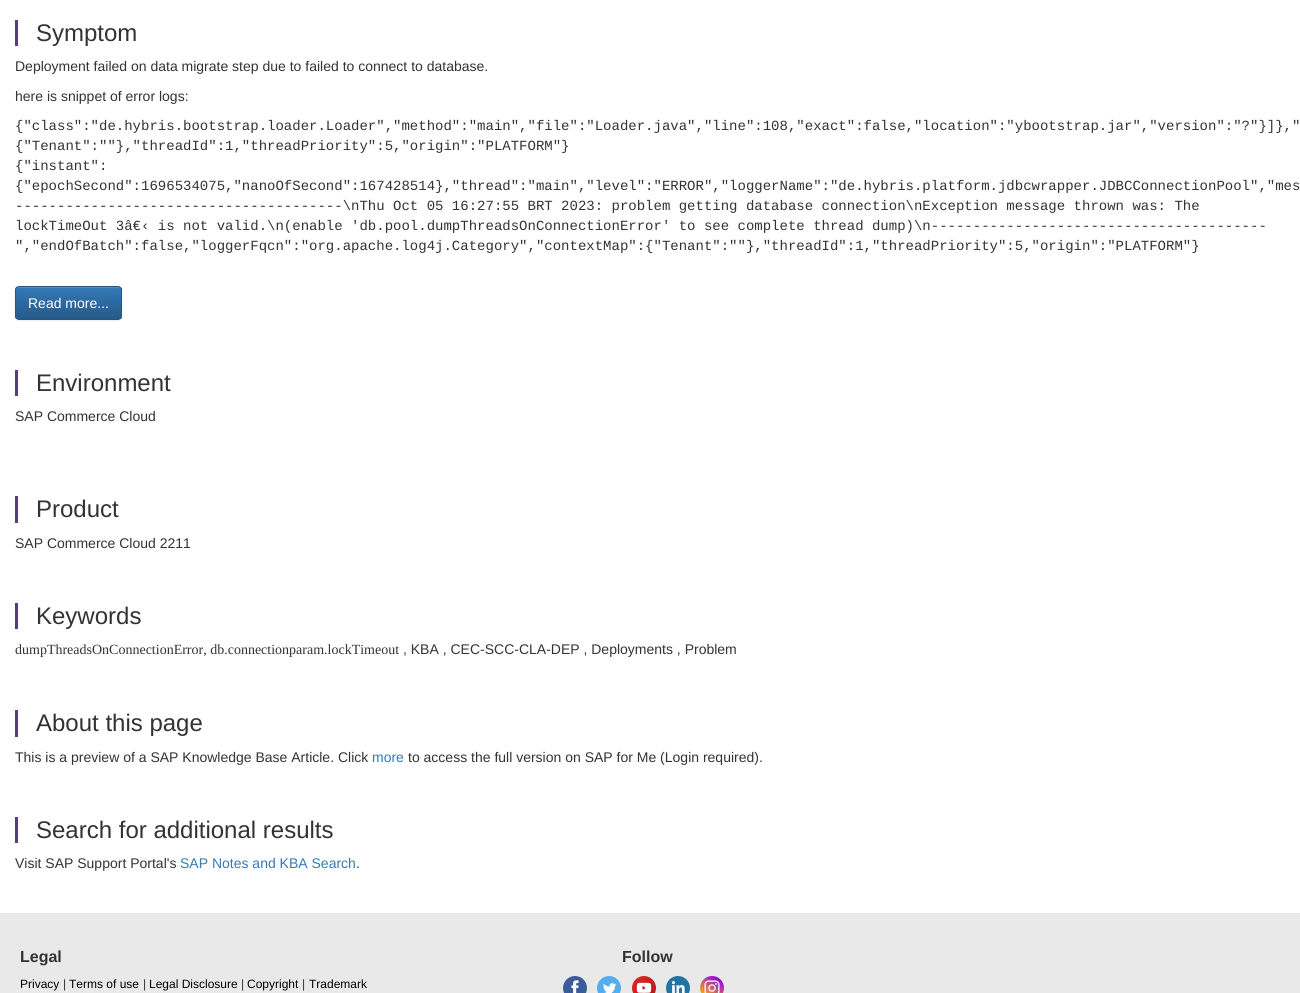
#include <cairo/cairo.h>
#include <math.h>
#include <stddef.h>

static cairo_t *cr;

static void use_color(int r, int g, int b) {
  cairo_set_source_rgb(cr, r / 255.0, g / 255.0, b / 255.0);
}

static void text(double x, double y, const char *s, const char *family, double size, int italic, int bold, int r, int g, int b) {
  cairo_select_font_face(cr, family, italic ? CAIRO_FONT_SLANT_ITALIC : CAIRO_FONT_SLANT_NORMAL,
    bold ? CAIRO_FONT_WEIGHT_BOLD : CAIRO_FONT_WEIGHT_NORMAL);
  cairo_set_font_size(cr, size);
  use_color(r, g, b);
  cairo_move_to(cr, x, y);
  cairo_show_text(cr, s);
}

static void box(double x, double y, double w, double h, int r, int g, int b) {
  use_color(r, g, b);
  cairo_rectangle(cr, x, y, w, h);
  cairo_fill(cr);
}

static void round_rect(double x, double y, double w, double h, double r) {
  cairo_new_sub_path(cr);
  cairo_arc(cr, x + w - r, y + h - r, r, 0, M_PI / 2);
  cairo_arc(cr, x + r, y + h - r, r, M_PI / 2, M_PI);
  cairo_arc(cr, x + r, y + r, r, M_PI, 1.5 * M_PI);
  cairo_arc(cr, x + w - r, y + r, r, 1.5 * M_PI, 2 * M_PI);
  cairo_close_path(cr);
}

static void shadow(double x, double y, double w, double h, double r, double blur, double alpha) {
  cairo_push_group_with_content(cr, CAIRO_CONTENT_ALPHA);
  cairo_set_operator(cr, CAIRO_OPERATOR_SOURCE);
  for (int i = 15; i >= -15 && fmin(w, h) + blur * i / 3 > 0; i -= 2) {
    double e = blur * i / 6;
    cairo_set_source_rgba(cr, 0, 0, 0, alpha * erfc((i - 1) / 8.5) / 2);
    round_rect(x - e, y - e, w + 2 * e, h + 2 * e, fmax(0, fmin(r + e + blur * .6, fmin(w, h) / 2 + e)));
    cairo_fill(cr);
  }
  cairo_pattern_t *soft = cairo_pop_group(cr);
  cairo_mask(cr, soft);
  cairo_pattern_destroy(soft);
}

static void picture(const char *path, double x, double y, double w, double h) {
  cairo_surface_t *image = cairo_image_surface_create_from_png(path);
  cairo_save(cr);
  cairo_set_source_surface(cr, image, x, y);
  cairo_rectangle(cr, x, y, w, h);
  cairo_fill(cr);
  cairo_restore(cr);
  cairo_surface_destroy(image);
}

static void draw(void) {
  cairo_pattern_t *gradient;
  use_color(255, 255, 255);
  cairo_paint(cr);
  box(15, 20, 3, 26, 86, 61, 124);
  use_color(0, 0, 0);
  shadow(15, 287, 107, 34, 4, 0.5, 0.07);
  cairo_save(cr);
  round_rect(15, 286, 107, 34, 4);
  cairo_clip(cr);
  gradient = cairo_pattern_create_linear(69, 287, 69, 319);
  cairo_pattern_add_color_stop_rgba(gradient, 0, 0.2, 0.478, 0.718, 1);
  cairo_pattern_add_color_stop_rgba(gradient, 1, 0.149, 0.353, 0.533, 1);
  cairo_set_source(cr, gradient);
  cairo_pattern_destroy(gradient);
  cairo_rectangle(cr, 15, 287, 107, 32);
  cairo_fill(cr);
  cairo_restore(cr);
  use_color(82, 142, 193);
  cairo_new_path(cr);
  cairo_move_to(cr, 19, 288);
  cairo_line_to(cr, 118, 288);
  cairo_curve_to(cr, 120, 288, 121, 289, 121, 291);
  cairo_curve_to(cr, 121, 283, 104, 287, 102, 287);
  cairo_line_to(cr, 36, 287);
  cairo_curve_to(cr, 33, 287, 16, 283, 16, 291);
  cairo_curve_to(cr, 16, 289, 17, 288, 19, 288);
  cairo_close_path(cr);
  cairo_fill(cr);
  round_rect(15.5, 286.5, 106, 33, 3.5);
  use_color(36, 85, 128);
  cairo_set_line_width(cr, 1);
  cairo_stroke(cr);
  box(15, 370, 3, 26, 86, 61, 124);
  box(15, 496, 3, 27, 86, 61, 124);
  box(15, 603, 3, 26, 86, 61, 124);
  box(15, 710, 3, 27, 86, 61, 124);
  box(15, 817, 3, 26, 86, 61, 124);
  box(0, 913, 1300, 80, 233, 233, 233);
  picture("img_01.png", 563, 976, 24, 17);
  picture("img_02.png", 597, 976, 24, 17);
  picture("img_03.png", 632, 976, 24, 17);
  picture("img_04.png", 666, 976, 24, 17);
  picture("img_05.png", 700, 976, 24, 17);
  text(36, 41, "Symptom", "Liberation Sans", 24, 0, 0, 51, 51, 51);
  text(15, 71, "Deployment failed on data migrate step due to failed to connect to database.", "Liberation Sans", 14, 0, 0, 51, 51, 51);
  text(15, 101, "here is snippet of error logs:", "Liberation Sans", 14, 0, 0, 51, 51, 51);
  text(15, 130, "{\"class\":\"de.hybris.bootstrap.loader.Loader\",\"method\":\"main\",\"file\":\"Loader.java\",\"line\":108,\"exact\":false,\"location\":\"ybootstrap.jar\",\"version\":\"?\"}]},\"", "Liberation Mono", 14, 0, 0, 51, 51, 51);
  text(15, 150, "{\"Tenant\":\"\"},\"threadId\":1,\"threadPriority\":5,\"origin\":\"PLATFORM\"}", "Liberation Mono", 14, 0, 0, 51, 51, 51);
  text(15, 170, "{\"instant\":", "Liberation Mono", 14, 0, 0, 51, 51, 51);
  text(15, 190, "{\"epochSecond\":1696534075,\"nanoOfSecond\":167428514},\"thread\":\"main\",\"level\":\"ERROR\",\"loggerName\":\"de.hybris.platform.jdbcwrapper.JDBCConnectionPool\",\"mes", "Liberation Mono", 14, 0, 0, 51, 51, 51);
  text(15, 210, "---------------------------------------\\nThu Oct 05 16:27:55 BRT 2023: problem getting database connection\\nException message thrown was: The", "Liberation Mono", 14, 0, 0, 51, 51, 51);
  text(15, 230, "lockTimeOut 3â€‹ is not valid.\\n(enable 'db.pool.dumpThreadsOnConnectionError' to see complete thread dump)\\n----------------------------------------", "Liberation Mono", 14, 0, 0, 51, 51, 51);
  text(15, 250, "\",\"endOfBatch\":false,\"loggerFqcn\":\"org.apache.log4j.Category\",\"contextMap\":{\"Tenant\":\"\"},\"threadId\":1,\"threadPriority\":5,\"origin\":\"PLATFORM\"}", "Liberation Mono", 14, 0, 0, 51, 51, 51);
  text(28, 308, "Read more...", "Liberation Sans", 14, 0, 0, 255, 255, 255);
  text(36, 391, "Environment", "Liberation Sans", 24, 0, 0, 51, 51, 51);
  text(15, 421, "SAP Commerce Cloud", "Liberation Sans", 14, 0, 0, 51, 51, 51);
  text(36, 517, "Product", "Liberation Sans", 24, 0, 0, 51, 51, 51);
  text(15, 548, "SAP Commerce Cloud 2211", "Liberation Sans", 14, 0, 0, 51, 51, 51);
  text(36, 624, "Keywords", "Liberation Sans", 24, 0, 0, 51, 51, 51);
  text(15, 654, "dumpThreadsOnConnectionError, db.connectionparam.lockTimeout", "Liberation Serif", 14, 0, 0, 51, 51, 51);
  text(403, 654, ", KBA , CEC-SCC-CLA-DEP , Deployments , Problem", "Liberation Sans", 14, 0, 0, 51, 51, 51);
  text(36, 731, "About this page", "Liberation Sans", 24, 0, 0, 51, 51, 51);
  text(15, 762, "This is a preview of a SAP Knowledge Base Article. Click", "Liberation Sans", 14, 0, 0, 51, 51, 51);
  text(372, 762, "more", "Liberation Sans", 14, 0, 0, 51, 122, 183);
  text(408, 762, "to access the full version on SAP for Me (Login required).", "Liberation Sans", 14, 0, 0, 51, 51, 51);
  text(36, 838, "Search for additional results", "Liberation Sans", 24, 0, 0, 51, 51, 51);
  text(15, 868, "Visit SAP Support Portal's", "Liberation Sans", 14, 0, 0, 51, 51, 51);
  text(180, 868, "SAP Notes and KBA Search", "Liberation Sans", 14, 0, 0, 51, 122, 183);
  text(356, 868, ".", "Liberation Sans", 14, 0, 0, 51, 51, 51);
  text(20, 962, "Legal", "Liberation Sans", 16, 0, 1, 51, 51, 51);
  text(20, 988, "Privacy", "Liberation Sans", 12, 0, 0, 0, 0, 0);
  text(63, 988, "|", "Liberation Sans", 12, 0, 0, 51, 51, 51);
  text(69, 988, "Terms of use", "Liberation Sans", 12, 0, 0, 0, 0, 0);
  text(143, 988, "|", "Liberation Sans", 12, 0, 0, 51, 51, 51);
  text(149, 988, "Legal Disclosure", "Liberation Sans", 12, 0, 0, 0, 0, 0);
  text(241, 988, "|", "Liberation Sans", 12, 0, 0, 51, 51, 51);
  text(247, 988, "Copyright", "Liberation Sans", 12, 0, 0, 0, 0, 0);
  text(302, 988, "|", "Liberation Sans", 12, 0, 0, 51, 51, 51);
  text(309, 988, "Trademark", "Liberation Sans", 12, 0, 0, 0, 0, 0);
  text(622, 962, "Follow", "Liberation Sans", 16, 0, 1, 51, 51, 51);
}

int main(void) {
  cairo_surface_t *surface = cairo_image_surface_create(CAIRO_FORMAT_RGB24, 1300, 993);
  cr = cairo_create(surface);
  cairo_font_options_t *options = cairo_font_options_create();
  cairo_font_options_set_hint_metrics(options, CAIRO_HINT_METRICS_OFF);
  cairo_font_options_set_hint_style(options, CAIRO_HINT_STYLE_NONE);
  cairo_set_font_options(cr, options);
  cairo_set_miter_limit(cr, 4);
  draw();
  cairo_surface_write_to_png(surface, "out.png");
  cairo_font_options_destroy(options);
  cairo_destroy(cr);
  cairo_surface_destroy(surface);
  return 0;
}
